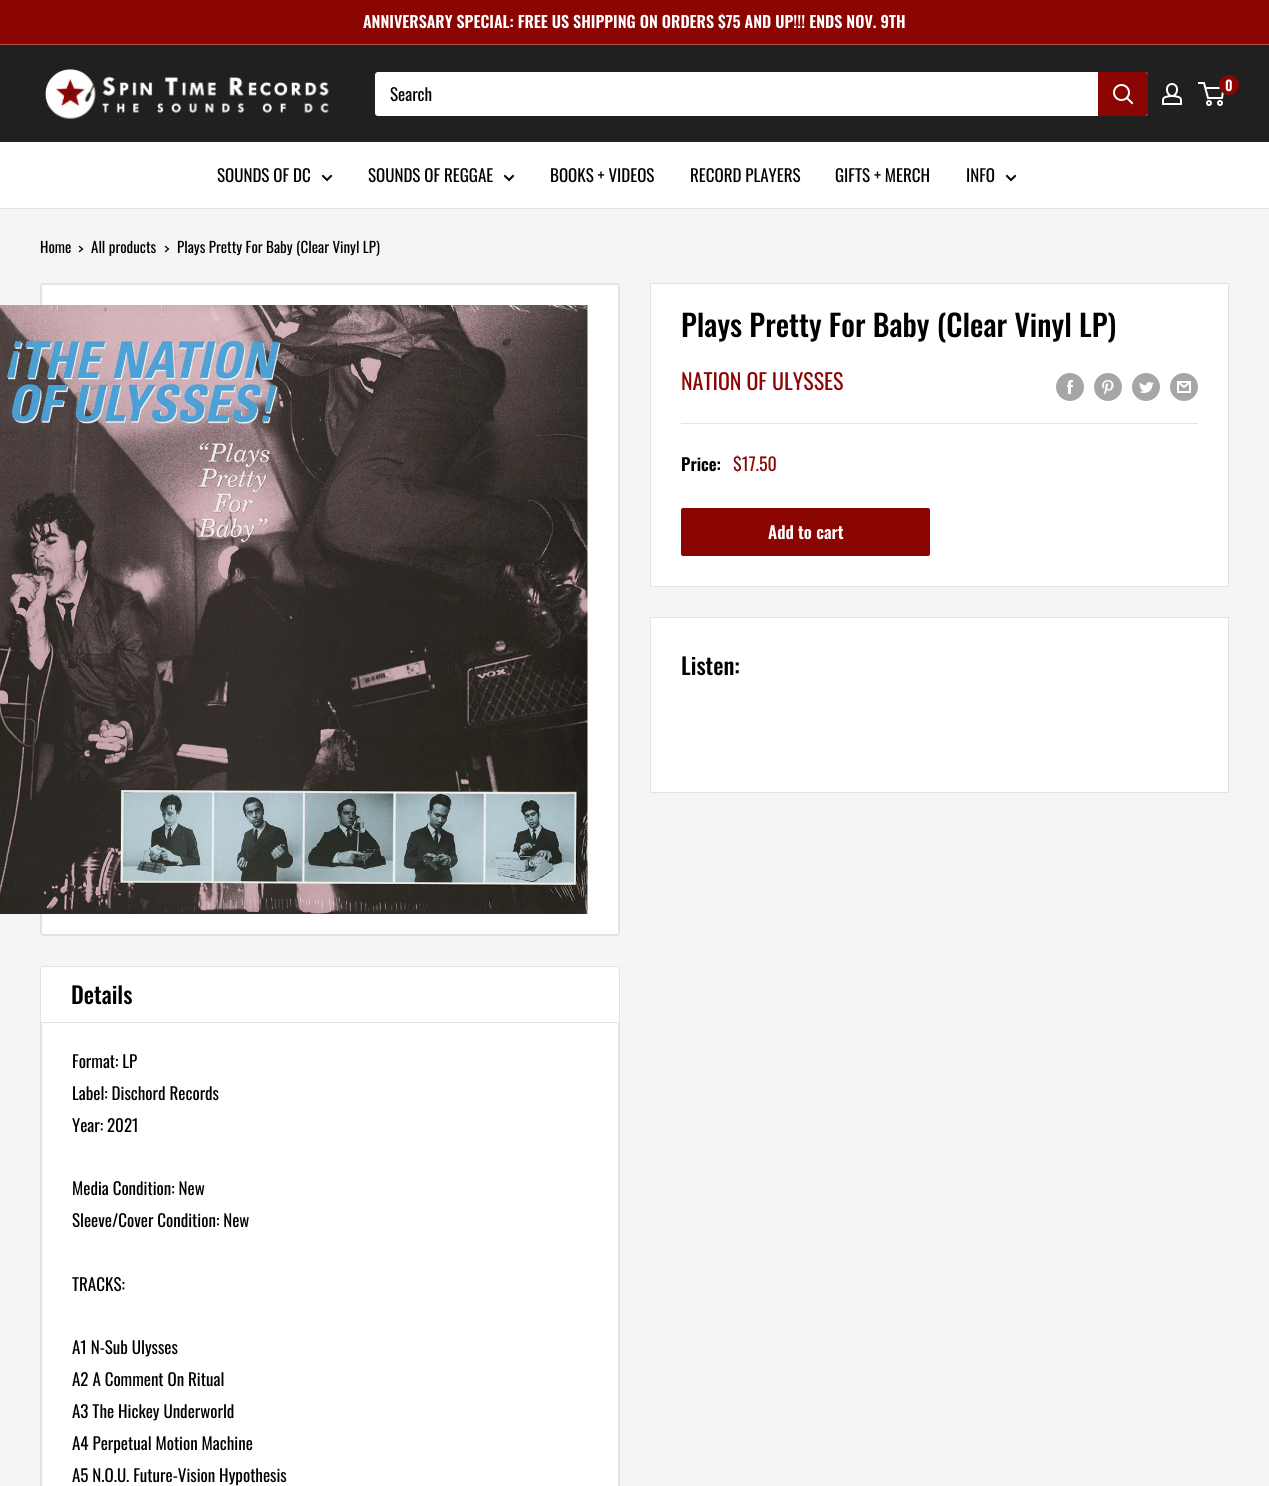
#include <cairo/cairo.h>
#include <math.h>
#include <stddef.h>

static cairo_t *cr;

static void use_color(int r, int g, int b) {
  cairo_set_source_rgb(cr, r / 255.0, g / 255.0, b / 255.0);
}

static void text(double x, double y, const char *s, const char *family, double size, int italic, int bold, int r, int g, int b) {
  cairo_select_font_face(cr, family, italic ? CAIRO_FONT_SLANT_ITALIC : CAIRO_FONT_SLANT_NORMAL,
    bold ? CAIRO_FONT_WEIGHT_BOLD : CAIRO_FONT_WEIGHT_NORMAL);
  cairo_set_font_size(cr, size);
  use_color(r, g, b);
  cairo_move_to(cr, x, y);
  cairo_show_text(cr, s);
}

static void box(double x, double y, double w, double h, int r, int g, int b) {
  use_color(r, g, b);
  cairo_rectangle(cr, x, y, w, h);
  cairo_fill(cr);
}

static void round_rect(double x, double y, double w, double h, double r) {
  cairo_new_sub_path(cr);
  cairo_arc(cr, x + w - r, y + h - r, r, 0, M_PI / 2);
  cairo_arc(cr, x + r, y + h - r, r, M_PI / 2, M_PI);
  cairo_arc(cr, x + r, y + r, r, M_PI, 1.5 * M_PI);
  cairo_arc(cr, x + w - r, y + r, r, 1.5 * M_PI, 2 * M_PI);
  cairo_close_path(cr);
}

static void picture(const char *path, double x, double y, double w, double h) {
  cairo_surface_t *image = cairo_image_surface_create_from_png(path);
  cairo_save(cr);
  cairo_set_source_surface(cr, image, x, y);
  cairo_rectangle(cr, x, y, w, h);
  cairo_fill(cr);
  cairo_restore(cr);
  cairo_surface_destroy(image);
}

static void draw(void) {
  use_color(243, 245, 246);
  cairo_paint(cr);
  box(0, 0, 1269, 44, 139, 6, 3);
  box(0, 44, 1269, 1, 174, 81, 79);
  box(0, 45, 1269, 97, 32, 32, 32);
  picture("img_01.png", 45, 69, 284, 50);
  picture("img_02.png", 1162, 83, 20, 22);
  cairo_arc(cr, 1209, 103, 2, 0, 2 * M_PI);
  use_color(255, 255, 255);
  cairo_stroke(cr);
  cairo_arc(cr, 1220, 103, 2, 0, 2 * M_PI);
  cairo_stroke(cr);
  cairo_new_path(cr);
  cairo_move_to(cr, 1205.5, 88);
  cairo_line_to(cr, 1223.5, 88);
  cairo_line_to(cr, 1222, 98);
  cairo_line_to(cr, 1208, 98);
  cairo_line_to(cr, 1204, 83);
  cairo_line_to(cr, 1198, 83);
  cairo_stroke(cr);
  use_color(139, 6, 3);
  cairo_arc(cr, 1229, 85, 10, 0, 2 * M_PI);
  cairo_fill(cr);
  use_color(255, 255, 255);
  round_rect(375, 72, 773, 44, 3);
  cairo_fill(cr);
  use_color(139, 6, 3);
  cairo_new_path(cr);
  cairo_move_to(cr, 1098, 72);
  cairo_line_to(cr, 1145, 72);
  cairo_curve_to(cr, 1146.5, 72, 1148, 73.5, 1148, 75);
  cairo_line_to(cr, 1148, 113);
  cairo_curve_to(cr, 1148, 114.5, 1146.5, 116, 1145, 116);
  cairo_line_to(cr, 1098, 116);
  cairo_close_path(cr);
  cairo_fill(cr);
  cairo_new_path(cr);
  cairo_move_to(cr, 1132, 103);
  cairo_line_to(cr, 1127, 98);
  use_color(255, 255, 255);
  cairo_set_line_cap(cr, CAIRO_LINE_CAP_SQUARE);
  cairo_stroke(cr);
  cairo_arc(cr, 1121.5, 92.5, 7.5, 0, 2 * M_PI);
  cairo_set_line_cap(cr, CAIRO_LINE_CAP_BUTT);
  cairo_stroke(cr);
  box(0, 142, 1269, 66, 255, 255, 255);
  box(0, 208, 1269, 1, 225, 227, 228);
  cairo_new_path(cr);
  cairo_move_to(cr, 331, 176);
  cairo_line_to(cr, 327, 180);
  cairo_line_to(cr, 323, 176);
  use_color(0, 0, 0);
  cairo_set_line_cap(cr, CAIRO_LINE_CAP_SQUARE);
  cairo_stroke(cr);
  cairo_new_path(cr);
  cairo_move_to(cr, 513, 176);
  cairo_line_to(cr, 509, 180);
  cairo_line_to(cr, 505, 176);
  cairo_stroke(cr);
  cairo_new_path(cr);
  cairo_move_to(cr, 1015, 176);
  cairo_line_to(cr, 1011, 180);
  cairo_line_to(cr, 1007, 176);
  cairo_stroke(cr);
  cairo_new_path(cr);
  cairo_move_to(cr, 79.5, 246.5);
  cairo_line_to(cr, 82.5, 249);
  cairo_line_to(cr, 79.5, 251.5);
  cairo_set_line_width(cr, 1.3);
  cairo_stroke(cr);
  cairo_new_path(cr);
  cairo_move_to(cr, 165.5, 246.5);
  cairo_line_to(cr, 168.5, 249);
  cairo_line_to(cr, 165.5, 251.5);
  cairo_stroke(cr);
  round_rect(40.5, 283.5, 579, 652, 2.5);
  use_color(225, 227, 228);
  cairo_set_line_width(cr, 1);
  cairo_set_line_cap(cr, CAIRO_LINE_CAP_BUTT);
  cairo_stroke(cr);
  use_color(255, 255, 255);
  cairo_rectangle(cr, 41.5, 284.5, 577, 650);
  cairo_fill_preserve(cr);
  use_color(225, 227, 228);
  cairo_stroke(cr);
  picture("img_03.png", 0, 305, 588, 609);
  use_color(255, 255, 255);
  cairo_rectangle(cr, 650.5, 283.5, 578, 303);
  cairo_fill_preserve(cr);
  use_color(225, 227, 228);
  cairo_stroke(cr);
  picture("img_04.png", 1056, 373, 28, 28);
  picture("img_05.png", 1094, 373, 28, 28);
  picture("img_06.png", 1132, 373, 28, 28);
  picture("img_07.png", 1170, 373, 28, 28);
  box(681, 423, 517, 1, 225, 227, 228);
  use_color(139, 6, 3);
  round_rect(681, 508, 249, 48, 2);
  cairo_fill(cr);
  use_color(255, 255, 255);
  cairo_rectangle(cr, 650.5, 617.5, 578, 175);
  cairo_fill_preserve(cr);
  use_color(225, 227, 228);
  cairo_stroke(cr);
  use_color(255, 255, 255);
  round_rect(40.5, 966.5, 579, 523, 2.5);
  cairo_fill_preserve(cr);
  use_color(225, 227, 228);
  cairo_stroke(cr);
  cairo_rectangle(cr, 41.5, 1022.5, 577, 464);
  cairo_stroke(cr);
  text(363, 28, "ANNIVERSARY SPECIAL: FREE US SHIPPING ON ORDERS $75 AND UP!!! ENDS NOV. 9TH", "Oswald SemiBold", 16, 0, 0, 255, 255, 255);
  text(1225, 91, "0", "Oswald SemiBold", 14, 0, 0, 255, 255, 255);
  text(390, 101, "Search", "Oswald", 17, 0, 0, 0, 0, 0);
  text(217, 182, "SOUNDS OF DC", "Oswald", 17, 0, 0, 0, 0, 0);
  text(368, 182, "SOUNDS OF REGGAE", "Oswald", 17, 0, 0, 0, 0, 0);
  text(550, 182, "BOOKS + VIDEOS", "Oswald", 17, 0, 0, 0, 0, 0);
  text(690, 182, "RECORD PLAYERS", "Oswald", 17, 0, 0, 0, 0, 0);
  text(835, 182, "GIFTS + MERCH", "Oswald", 17, 0, 0, 0, 0, 0);
  text(966, 182, "INFO", "Oswald", 17, 0, 0, 0, 0, 0);
  text(40, 253, "Home", "Oswald", 15, 0, 0, 0, 0, 0);
  text(91, 253, "All products", "Oswald", 15, 0, 0, 0, 0, 0);
  text(177, 253, "Plays Pretty For Baby (Clear Vinyl LP)", "Oswald", 15, 0, 0, 0, 0, 0);
  text(681, 337, "Plays Pretty For Baby (Clear Vinyl LP)", "Oswald Medium", 30, 0, 0, 0, 0, 0);
  text(681, 390, "NATION OF ULYSSES", "Oswald", 22, 0, 0, 139, 6, 3);
  text(681, 471, "Price:", "Oswald SemiBold", 17, 0, 0, 0, 0, 0);
  text(733, 471, "$17.50", "Oswald", 18, 0, 0, 139, 6, 3);
  text(768, 539, "Add to cart", "Oswald SemiBold", 17, 0, 0, 255, 255, 255);
  text(681, 675, "Listen:", "Oswald Medium", 23, 0, 0, 0, 0, 0);
  text(71, 1004, "Details", "Oswald Medium", 23, 0, 0, 0, 0, 0);
  text(72, 1068, "Format: LP", "Oswald", 17, 0, 0, 0, 0, 0);
  text(72, 1100, "Label: Dischord Records", "Oswald", 17, 0, 0, 0, 0, 0);
  text(72, 1132, "Year: 2021", "Oswald", 17, 0, 0, 0, 0, 0);
  text(72, 1195, "Media Condition: New", "Oswald", 17, 0, 0, 0, 0, 0);
  text(72, 1227, "Sleeve/Cover Condition: New", "Oswald", 17, 0, 0, 0, 0, 0);
  text(72, 1291, "TRACKS:", "Oswald", 17, 0, 0, 0, 0, 0);
  text(72, 1354, "A1 N-Sub Ulysses", "Oswald", 17, 0, 0, 0, 0, 0);
  text(72, 1386, "A2 A Comment On Ritual", "Oswald", 17, 0, 0, 0, 0, 0);
  text(72, 1418, "A3 The Hickey Underworld", "Oswald", 17, 0, 0, 0, 0, 0);
  text(72, 1450, "A4 Perpetual Motion Machine", "Oswald", 17, 0, 0, 0, 0, 0);
  text(72, 1482, "A5 N.O.U. Future-Vision Hypothesis", "Oswald", 17, 0, 0, 0, 0, 0);
}

int main(void) {
  cairo_surface_t *surface = cairo_image_surface_create(CAIRO_FORMAT_RGB24, 1269, 1486);
  cr = cairo_create(surface);
  cairo_font_options_t *options = cairo_font_options_create();
  cairo_font_options_set_hint_metrics(options, CAIRO_HINT_METRICS_OFF);
  cairo_font_options_set_hint_style(options, CAIRO_HINT_STYLE_NONE);
  cairo_set_font_options(cr, options);
  cairo_set_miter_limit(cr, 4);
  draw();
  cairo_surface_write_to_png(surface, "out.png");
  cairo_font_options_destroy(options);
  cairo_destroy(cr);
  cairo_surface_destroy(surface);
  return 0;
}
